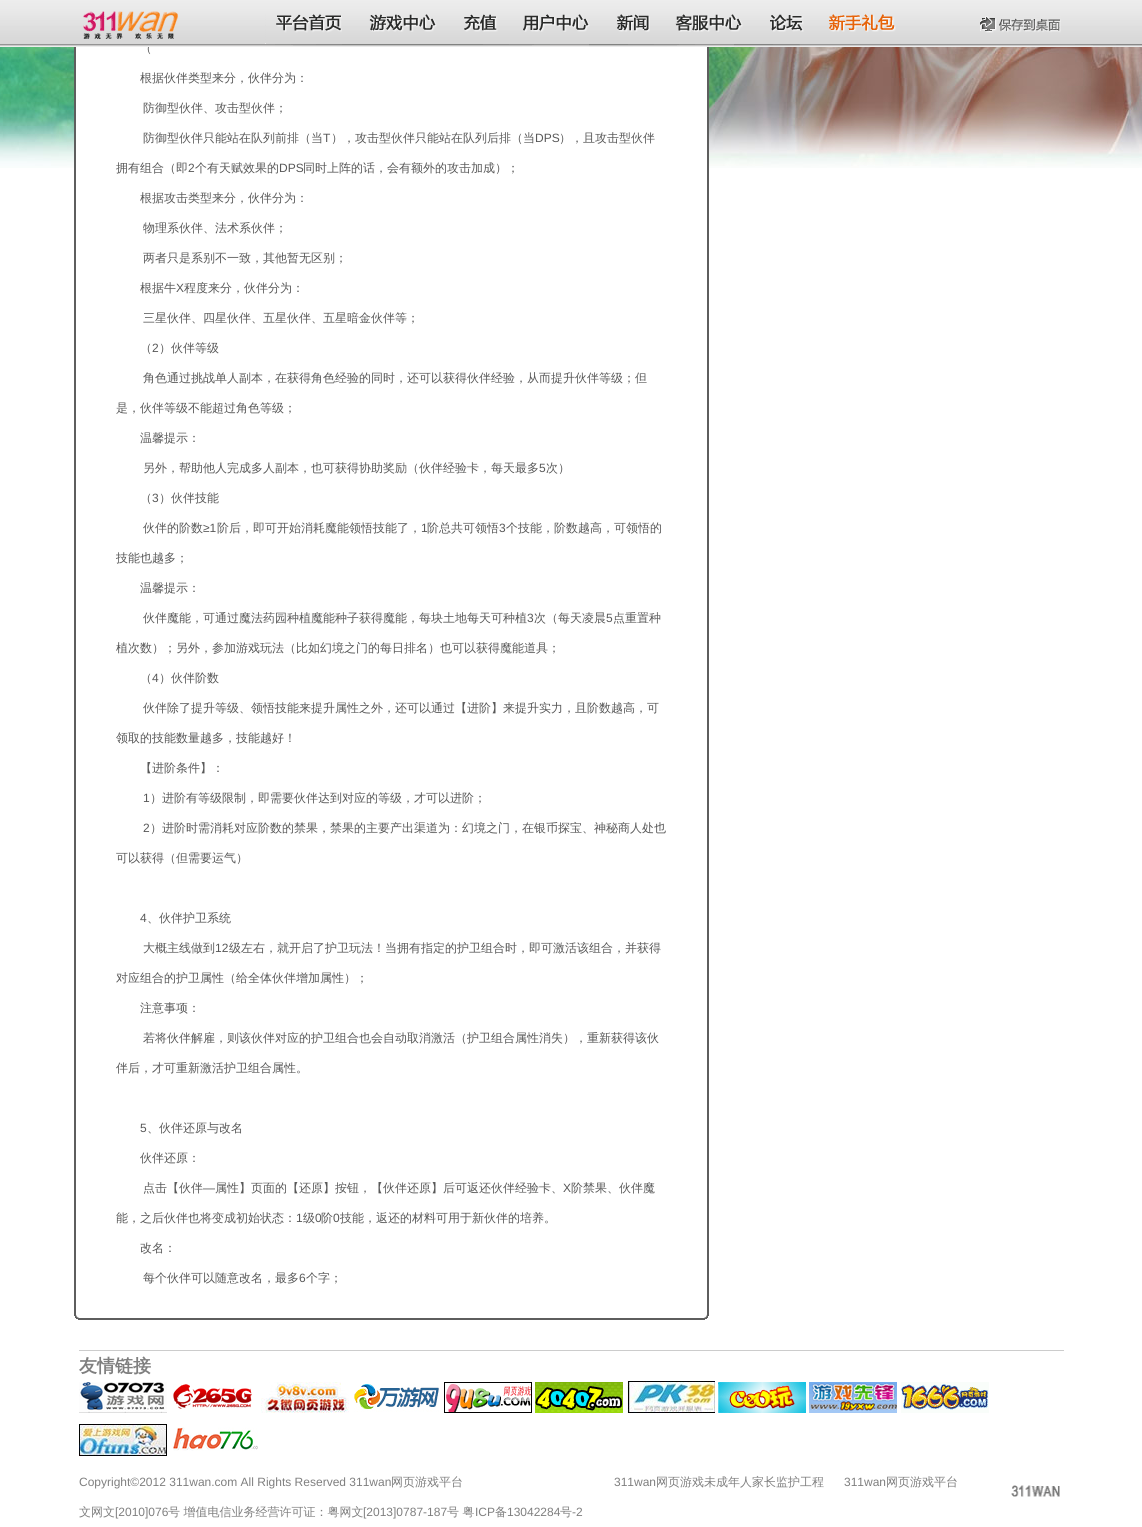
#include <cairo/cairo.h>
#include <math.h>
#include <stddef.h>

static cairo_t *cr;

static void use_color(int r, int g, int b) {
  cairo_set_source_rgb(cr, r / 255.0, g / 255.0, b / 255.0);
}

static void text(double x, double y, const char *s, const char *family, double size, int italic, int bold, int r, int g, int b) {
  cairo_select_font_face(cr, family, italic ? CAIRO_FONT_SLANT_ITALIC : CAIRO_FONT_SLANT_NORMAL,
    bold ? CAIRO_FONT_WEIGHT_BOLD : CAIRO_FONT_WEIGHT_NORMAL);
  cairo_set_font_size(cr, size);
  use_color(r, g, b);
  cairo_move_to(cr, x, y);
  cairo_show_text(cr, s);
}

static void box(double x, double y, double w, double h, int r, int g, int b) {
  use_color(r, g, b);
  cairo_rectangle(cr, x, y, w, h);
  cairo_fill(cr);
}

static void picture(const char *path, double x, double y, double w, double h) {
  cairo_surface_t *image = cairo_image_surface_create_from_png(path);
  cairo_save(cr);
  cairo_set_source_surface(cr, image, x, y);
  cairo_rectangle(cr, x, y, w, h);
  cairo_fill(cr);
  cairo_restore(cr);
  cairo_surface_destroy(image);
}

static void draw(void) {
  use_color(255, 255, 255);
  cairo_paint(cr);
  picture("img_01.png", 0, 47, 1142, 121);
  box(76, 47, 631, 121, 255, 255, 255);
  box(707, 47, 2, 1266, 94, 94, 94);
  box(74, 47, 2, 1266, 94, 94, 94);
  box(79, 1318, 625, 2, 94, 94, 94);
  picture("img_13.png", 74, 1313, 5, 7);
  picture("img_14.png", 704, 1313, 5, 7);
  box(79, 1350, 985, 1, 204, 204, 204);
  picture("img_15.png", 79, 1382, 88, 31);
  picture("img_16.png", 173, 1384, 79, 25);
  picture("img_17.png", 261, 1382, 88, 31);
  picture("img_18.png", 354, 1384, 85, 28);
  picture("img_19.png", 444, 1382, 88, 31);
  picture("img_20.png", 535, 1382, 88, 31);
  picture("img_21.png", 627, 1381, 88, 32);
  picture("img_22.png", 718, 1382, 88, 31);
  picture("img_23.png", 809, 1382, 88, 31);
  picture("img_24.png", 901, 1382, 88, 31);
  picture("img_25.png", 79, 1424, 88, 32);
  picture("img_26.png", 173, 1427, 85, 24);
  picture("img_27.png", 1011, 1485, 49, 12);
  text(140, 52, "（", "WenQuanYi Zen Hei Medium", 12, 0, 0, 88, 88, 88);
  picture("img_02.png", 0, 0, 1142, 47);
  picture("img_12.png", 980, 16, 81, 17);
  picture("img_11.png", 829, 14, 67, 18);
  picture("img_10.png", 770, 14, 34, 18);
  picture("img_09.png", 675, 14, 68, 18);
  picture("img_08.png", 617, 14, 33, 18);
  picture("img_07.png", 523, 14, 67, 18);
  picture("img_06.png", 464, 14, 34, 18);
  picture("img_05.png", 369, 14, 68, 18);
  picture("img_04.png", 265, 14, 77, 30);
  picture("img_03.png", 83, 11, 95, 28);
  text(140, 82, "根据伙伴类型来分，伙伴分为：", "WenQuanYi Zen Hei Medium", 12, 0, 0, 88, 88, 88);
  text(143, 112, "防御型伙伴、攻击型伙伴；", "WenQuanYi Zen Hei Medium", 12, 0, 0, 88, 88, 88);
  text(143, 142, "防御型伙伴只能站在队列前排（当", "WenQuanYi Zen Hei Medium", 12, 0, 0, 88, 88, 88);
  text(323, 142, "T", "Liberation Sans", 12, 0, 0, 88, 88, 88);
  text(331, 142, "），攻击型伙伴只能站在队列后排（当", "WenQuanYi Zen Hei Medium", 12, 0, 0, 88, 88, 88);
  text(535, 142, "DPS", "Liberation Sans", 12, 0, 0, 88, 88, 88);
  text(559, 142, "），且攻击型伙伴", "WenQuanYi Zen Hei Medium", 12, 0, 0, 88, 88, 88);
  text(116, 172, "拥有组合（即", "WenQuanYi Zen Hei Medium", 12, 0, 0, 88, 88, 88);
  text(188, 172, "2", "Liberation Sans", 12, 0, 0, 88, 88, 88);
  text(195, 172, "个有天赋效果的", "WenQuanYi Zen Hei Medium", 12, 0, 0, 88, 88, 88);
  text(279, 172, "DPS", "Liberation Sans", 12, 0, 0, 88, 88, 88);
  text(303, 172, "同时上阵的话，会有额外的攻击加成）；", "WenQuanYi Zen Hei Medium", 12, 0, 0, 88, 88, 88);
  text(140, 202, "根据攻击类型来分，伙伴分为：", "WenQuanYi Zen Hei Medium", 12, 0, 0, 88, 88, 88);
  text(143, 232, "物理系伙伴、法术系伙伴；", "WenQuanYi Zen Hei Medium", 12, 0, 0, 88, 88, 88);
  text(143, 262, "两者只是系别不一致，其他暂无区别；", "WenQuanYi Zen Hei Medium", 12, 0, 0, 88, 88, 88);
  text(140, 292, "根据牛", "WenQuanYi Zen Hei Medium", 12, 0, 0, 88, 88, 88);
  text(176, 292, "X", "Liberation Sans", 12, 0, 0, 88, 88, 88);
  text(184, 292, "程度来分，伙伴分为：", "WenQuanYi Zen Hei Medium", 12, 0, 0, 88, 88, 88);
  text(143, 322, "三星伙伴、四星伙伴、五星伙伴、五星暗金伙伴等；", "WenQuanYi Zen Hei Medium", 12, 0, 0, 88, 88, 88);
  text(140, 352, "（", "WenQuanYi Zen Hei Medium", 12, 0, 0, 88, 88, 88);
  text(152, 352, "2", "Liberation Sans", 12, 0, 0, 88, 88, 88);
  text(159, 352, "）伙伴等级", "WenQuanYi Zen Hei Medium", 12, 0, 0, 88, 88, 88);
  text(143, 382, "角色通过挑战单人副本，在获得角色经验的同时，还可以获得伙伴经验，从而提升伙伴等级；但", "WenQuanYi Zen Hei Medium", 12, 0, 0, 88, 88, 88);
  text(116, 412, "是，伙伴等级不能超过角色等级；", "WenQuanYi Zen Hei Medium", 12, 0, 0, 88, 88, 88);
  text(140, 442, "温馨提示：", "WenQuanYi Zen Hei Medium", 12, 0, 0, 88, 88, 88);
  text(143, 472, "另外，帮助他人完成多人副本，也可获得协助奖励（伙伴经验卡，每天最多", "WenQuanYi Zen Hei Medium", 12, 0, 0, 88, 88, 88);
  text(539, 472, "5", "Liberation Sans", 12, 0, 0, 88, 88, 88);
  text(546, 472, "次）", "WenQuanYi Zen Hei Medium", 12, 0, 0, 88, 88, 88);
  text(140, 502, "（", "WenQuanYi Zen Hei Medium", 12, 0, 0, 88, 88, 88);
  text(152, 502, "3", "Liberation Sans", 12, 0, 0, 88, 88, 88);
  text(159, 502, "）伙伴技能", "WenQuanYi Zen Hei Medium", 12, 0, 0, 88, 88, 88);
  text(143, 532, "伙伴的阶数", "WenQuanYi Zen Hei Medium", 12, 0, 0, 88, 88, 88);
  text(203, 532, "≥1", "Liberation Sans", 12, 0, 0, 88, 88, 88);
  text(217, 532, "阶后，即可开始消耗魔能领悟技能了，", "WenQuanYi Zen Hei Medium", 12, 0, 0, 88, 88, 88);
  text(421, 532, "1", "Liberation Sans", 12, 0, 0, 88, 88, 88);
  text(427, 532, "阶总共可领悟", "WenQuanYi Zen Hei Medium", 12, 0, 0, 88, 88, 88);
  text(499, 532, "3", "Liberation Sans", 12, 0, 0, 88, 88, 88);
  text(506, 532, "个技能，阶数越高，可领悟的", "WenQuanYi Zen Hei Medium", 12, 0, 0, 88, 88, 88);
  text(116, 562, "技能也越多；", "WenQuanYi Zen Hei Medium", 12, 0, 0, 88, 88, 88);
  text(140, 592, "温馨提示：", "WenQuanYi Zen Hei Medium", 12, 0, 0, 88, 88, 88);
  text(143, 622, "伙伴魔能，可通过魔法药园种植魔能种子获得魔能，每块土地每天可种植", "WenQuanYi Zen Hei Medium", 12, 0, 0, 88, 88, 88);
  text(527, 622, "3", "Liberation Sans", 12, 0, 0, 88, 88, 88);
  text(534, 622, "次（每天凌晨", "WenQuanYi Zen Hei Medium", 12, 0, 0, 88, 88, 88);
  text(606, 622, "5", "Liberation Sans", 12, 0, 0, 88, 88, 88);
  text(613, 622, "点重置种", "WenQuanYi Zen Hei Medium", 12, 0, 0, 88, 88, 88);
  text(116, 652, "植次数）；另外，参加游戏玩法（比如幻境之门的每日排名）也可以获得魔能道具；", "WenQuanYi Zen Hei Medium", 12, 0, 0, 88, 88, 88);
  text(140, 682, "（", "WenQuanYi Zen Hei Medium", 12, 0, 0, 88, 88, 88);
  text(152, 682, "4", "Liberation Sans", 12, 0, 0, 88, 88, 88);
  text(159, 682, "）伙伴阶数", "WenQuanYi Zen Hei Medium", 12, 0, 0, 88, 88, 88);
  text(143, 712, "伙伴除了提升等级、领悟技能来提升属性之外，还可以通过【进阶】来提升实力，且阶数越高，可", "WenQuanYi Zen Hei Medium", 12, 0, 0, 88, 88, 88);
  text(116, 742, "领取的技能数量越多，技能越好！", "WenQuanYi Zen Hei Medium", 12, 0, 0, 88, 88, 88);
  text(140, 772, "【进阶条件】：", "WenQuanYi Zen Hei Medium", 12, 0, 0, 88, 88, 88);
  text(143, 802, "1", "Liberation Sans", 12, 0, 0, 88, 88, 88);
  text(150, 802, "）进阶有等级限制，即需要伙伴达到对应的等级，才可以进阶；", "WenQuanYi Zen Hei Medium", 12, 0, 0, 88, 88, 88);
  text(143, 832, "2", "Liberation Sans", 12, 0, 0, 88, 88, 88);
  text(150, 832, "）进阶时需消耗对应阶数的禁果，禁果的主要产出渠道为：幻境之门，在银币探宝、神秘商人处也", "WenQuanYi Zen Hei Medium", 12, 0, 0, 88, 88, 88);
  text(116, 862, "可以获得（但需要运气）", "WenQuanYi Zen Hei Medium", 12, 0, 0, 88, 88, 88);
  text(140, 922, "4", "Liberation Sans", 12, 0, 0, 88, 88, 88);
  text(147, 922, "、伙伴护卫系统", "WenQuanYi Zen Hei Medium", 12, 0, 0, 88, 88, 88);
  text(143, 952, "大概主线做到", "WenQuanYi Zen Hei Medium", 12, 0, 0, 88, 88, 88);
  text(215, 952, "12", "Liberation Sans", 12, 0, 0, 88, 88, 88);
  text(229, 952, "级左右，就开启了护卫玩法！当拥有指定的护卫组合时，即可激活该组合，并获得", "WenQuanYi Zen Hei Medium", 12, 0, 0, 88, 88, 88);
  text(116, 982, "对应组合的护卫属性（给全体伙伴增加属性）；", "WenQuanYi Zen Hei Medium", 12, 0, 0, 88, 88, 88);
  text(140, 1012, "注意事项：", "WenQuanYi Zen Hei Medium", 12, 0, 0, 88, 88, 88);
  text(143, 1042, "若将伙伴解雇，则该伙伴对应的护卫组合也会自动取消激活（护卫组合属性消失），重新获得该伙", "WenQuanYi Zen Hei Medium", 12, 0, 0, 88, 88, 88);
  text(116, 1072, "伴后，才可重新激活护卫组合属性。", "WenQuanYi Zen Hei Medium", 12, 0, 0, 88, 88, 88);
  text(140, 1132, "5", "Liberation Sans", 12, 0, 0, 88, 88, 88);
  text(147, 1132, "、伙伴还原与改名", "WenQuanYi Zen Hei Medium", 12, 0, 0, 88, 88, 88);
  text(140, 1162, "伙伴还原：", "WenQuanYi Zen Hei Medium", 12, 0, 0, 88, 88, 88);
  text(143, 1192, "点击【伙伴", "WenQuanYi Zen Hei Medium", 12, 0, 0, 88, 88, 88);
  text(203, 1192, "—", "Liberation Sans", 12, 0, 0, 88, 88, 88);
  text(215, 1192, "属性】页面的【还原】按钮，【伙伴还原】后可返还伙伴经验卡、", "WenQuanYi Zen Hei Medium", 12, 0, 0, 88, 88, 88);
  text(563, 1192, "X", "Liberation Sans", 12, 0, 0, 88, 88, 88);
  text(571, 1192, "阶禁果、伙伴魔", "WenQuanYi Zen Hei Medium", 12, 0, 0, 88, 88, 88);
  text(116, 1222, "能，之后伙伴也将变成初始状态：", "WenQuanYi Zen Hei Medium", 12, 0, 0, 88, 88, 88);
  text(296, 1222, "1", "Liberation Sans", 12, 0, 0, 88, 88, 88);
  text(303, 1222, "级", "WenQuanYi Zen Hei Medium", 12, 0, 0, 88, 88, 88);
  text(315, 1222, "0", "Liberation Sans", 12, 0, 0, 88, 88, 88);
  text(321, 1222, "阶", "WenQuanYi Zen Hei Medium", 12, 0, 0, 88, 88, 88);
  text(333, 1222, "0", "Liberation Sans", 12, 0, 0, 88, 88, 88);
  text(340, 1222, "技能，返还的材料可用于新伙伴的培养。", "WenQuanYi Zen Hei Medium", 12, 0, 0, 88, 88, 88);
  text(140, 1252, "改名：", "WenQuanYi Zen Hei Medium", 12, 0, 0, 88, 88, 88);
  text(143, 1282, "每个伙伴可以随意改名，最多", "WenQuanYi Zen Hei Medium", 12, 0, 0, 88, 88, 88);
  text(299, 1282, "6", "Liberation Sans", 12, 0, 0, 88, 88, 88);
  text(306, 1282, "个字；", "WenQuanYi Zen Hei Medium", 12, 0, 0, 88, 88, 88);
  text(79, 1372, "友情链接", "WenQuanYi Zen Hei", 18, 0, 1, 127, 127, 127);
  text(79, 1486, "Copyright©2012 311wan.com All Rights Reserved 311wan", "Liberation Sans", 12, 0, 0, 127, 127, 127);
  text(391, 1486, "网页游戏平台", "WenQuanYi Zen Hei Medium", 12, 0, 0, 127, 127, 127);
  text(79, 1516, "文网文", "WenQuanYi Zen Hei Medium", 12, 0, 0, 127, 127, 127);
  text(115, 1516, "[2010]076", "Liberation Sans", 12, 0, 0, 127, 127, 127);
  text(168, 1516, "号 增值电信业务经营许可证：粤网文", "WenQuanYi Zen Hei Medium", 12, 0, 0, 127, 127, 127);
  text(363, 1516, "[2013]0787-187", "Liberation Sans", 12, 0, 0, 127, 127, 127);
  text(447, 1516, "号 粤", "WenQuanYi Zen Hei Medium", 12, 0, 0, 127, 127, 127);
  text(475, 1516, "ICP", "Liberation Sans", 12, 0, 0, 127, 127, 127);
  text(495, 1516, "备", "WenQuanYi Zen Hei Medium", 12, 0, 0, 127, 127, 127);
  text(507, 1516, "13042284", "Liberation Sans", 12, 0, 0, 127, 127, 127);
  text(560, 1516, "号", "WenQuanYi Zen Hei Medium", 12, 0, 0, 127, 127, 127);
  text(572, 1516, "-2", "Liberation Sans", 12, 0, 0, 127, 127, 127);
  text(614, 1486, "311wan", "Liberation Sans", 12, 0, 0, 127, 127, 127);
  text(656, 1486, "网页游戏未成年人家长监护工程", "WenQuanYi Zen Hei Medium", 12, 0, 0, 127, 127, 127);
  text(844, 1486, "311wan", "Liberation Sans", 12, 0, 0, 127, 127, 127);
  text(886, 1486, "网页游戏平台", "WenQuanYi Zen Hei Medium", 12, 0, 0, 127, 127, 127);
}

int main(void) {
  cairo_surface_t *surface = cairo_image_surface_create(CAIRO_FORMAT_RGB24, 1142, 1527);
  cr = cairo_create(surface);
  cairo_font_options_t *options = cairo_font_options_create();
  cairo_font_options_set_hint_metrics(options, CAIRO_HINT_METRICS_OFF);
  cairo_font_options_set_hint_style(options, CAIRO_HINT_STYLE_NONE);
  cairo_set_font_options(cr, options);
  cairo_set_miter_limit(cr, 4);
  draw();
  cairo_surface_write_to_png(surface, "out.png");
  cairo_font_options_destroy(options);
  cairo_destroy(cr);
  cairo_surface_destroy(surface);
  return 0;
}
